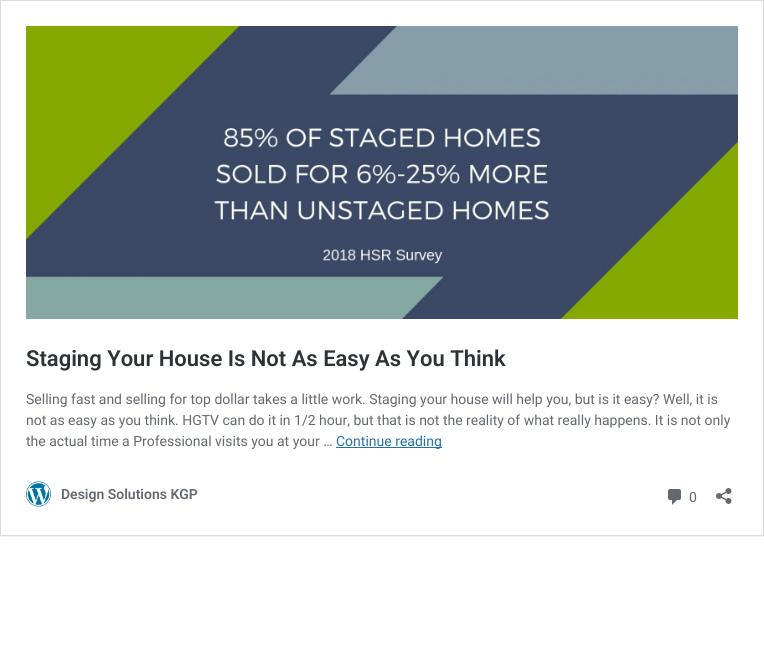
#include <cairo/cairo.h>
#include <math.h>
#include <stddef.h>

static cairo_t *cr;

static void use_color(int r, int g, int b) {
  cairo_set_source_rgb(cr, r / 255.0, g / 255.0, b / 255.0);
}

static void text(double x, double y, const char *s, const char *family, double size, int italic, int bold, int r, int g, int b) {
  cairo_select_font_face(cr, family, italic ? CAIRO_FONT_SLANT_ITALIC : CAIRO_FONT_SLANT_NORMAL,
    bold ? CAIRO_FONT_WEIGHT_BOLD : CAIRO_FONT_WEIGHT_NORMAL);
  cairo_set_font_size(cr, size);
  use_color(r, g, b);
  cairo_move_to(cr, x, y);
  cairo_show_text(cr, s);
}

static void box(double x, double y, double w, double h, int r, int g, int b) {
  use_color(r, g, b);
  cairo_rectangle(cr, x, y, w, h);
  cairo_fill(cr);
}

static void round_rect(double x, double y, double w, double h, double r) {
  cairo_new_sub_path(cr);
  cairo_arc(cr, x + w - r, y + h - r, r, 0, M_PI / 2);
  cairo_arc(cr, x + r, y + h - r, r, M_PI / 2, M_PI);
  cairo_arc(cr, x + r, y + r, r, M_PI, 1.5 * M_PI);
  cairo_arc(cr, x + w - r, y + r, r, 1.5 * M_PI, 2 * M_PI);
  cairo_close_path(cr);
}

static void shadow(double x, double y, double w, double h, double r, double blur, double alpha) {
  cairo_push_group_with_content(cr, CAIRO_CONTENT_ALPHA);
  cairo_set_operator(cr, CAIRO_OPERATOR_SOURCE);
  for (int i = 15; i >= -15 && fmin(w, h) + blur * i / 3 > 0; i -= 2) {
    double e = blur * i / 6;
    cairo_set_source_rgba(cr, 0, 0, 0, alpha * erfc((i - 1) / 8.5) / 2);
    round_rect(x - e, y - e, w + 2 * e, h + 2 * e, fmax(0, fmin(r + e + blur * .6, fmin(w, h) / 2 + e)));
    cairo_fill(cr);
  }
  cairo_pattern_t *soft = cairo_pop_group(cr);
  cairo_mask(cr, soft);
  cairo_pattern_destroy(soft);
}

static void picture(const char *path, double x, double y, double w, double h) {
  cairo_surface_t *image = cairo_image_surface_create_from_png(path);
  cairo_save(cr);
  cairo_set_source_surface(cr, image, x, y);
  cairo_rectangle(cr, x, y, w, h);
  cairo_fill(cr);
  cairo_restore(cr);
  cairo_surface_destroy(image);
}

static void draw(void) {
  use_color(255, 255, 255);
  cairo_paint(cr);
  cairo_save(cr);
  cairo_rectangle(cr, 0, 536, 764, 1);
  cairo_clip(cr);
  use_color(0, 0, 0);
  shadow(0, 1, 764, 536, 0, 0.5, 0.05);
  cairo_restore(cr);
  cairo_rectangle(cr, 0.5, 0.5, 763, 535);
  use_color(220, 220, 222);
  cairo_set_line_width(cr, 1);
  cairo_stroke(cr);
  picture("img_01.png", 26, 26, 712, 293);
  box(336, 447, 106, 1, 34, 113, 177);
  picture("img_02.png", 26, 481, 25, 26);
  picture("img_03.png", 668, 489, 13, 16);
  picture("img_04.png", 716, 488, 16, 16);
  text(26, 366, "Staging Your House Is Not As Easy As You Think", "Roboto SemiBold", 22, 0, 0, 44, 51, 56);
  text(26, 404, "Selling fast and selling for top dollar takes a little work. Staging your house will help you, but is it easy? Well, it is", "Roboto", 14, 0, 0, 100, 105, 112);
  text(26, 425, "not as easy as you think. HGTV can do it in 1/2 hour, but that is not the reality of what really happens. It is not only", "Roboto", 14, 0, 0, 100, 105, 112);
  text(26, 446, "the actual time a Professional visits you at your …", "Roboto", 14, 0, 0, 100, 105, 112);
  text(336, 446, "Continue reading", "Roboto", 14, 0, 0, 34, 113, 177);
  text(61, 499, "Design Solutions KGP", "Roboto SemiBold", 14, 0, 0, 100, 105, 112);
  text(689, 502, "0", "Roboto", 14, 0, 0, 100, 105, 112);
}

int main(void) {
  cairo_surface_t *surface = cairo_image_surface_create(CAIRO_FORMAT_RGB24, 764, 666);
  cr = cairo_create(surface);
  cairo_font_options_t *options = cairo_font_options_create();
  cairo_font_options_set_hint_metrics(options, CAIRO_HINT_METRICS_OFF);
  cairo_font_options_set_hint_style(options, CAIRO_HINT_STYLE_NONE);
  cairo_set_font_options(cr, options);
  cairo_set_miter_limit(cr, 4);
  draw();
  cairo_surface_write_to_png(surface, "out.png");
  cairo_font_options_destroy(options);
  cairo_destroy(cr);
  cairo_surface_destroy(surface);
  return 0;
}
